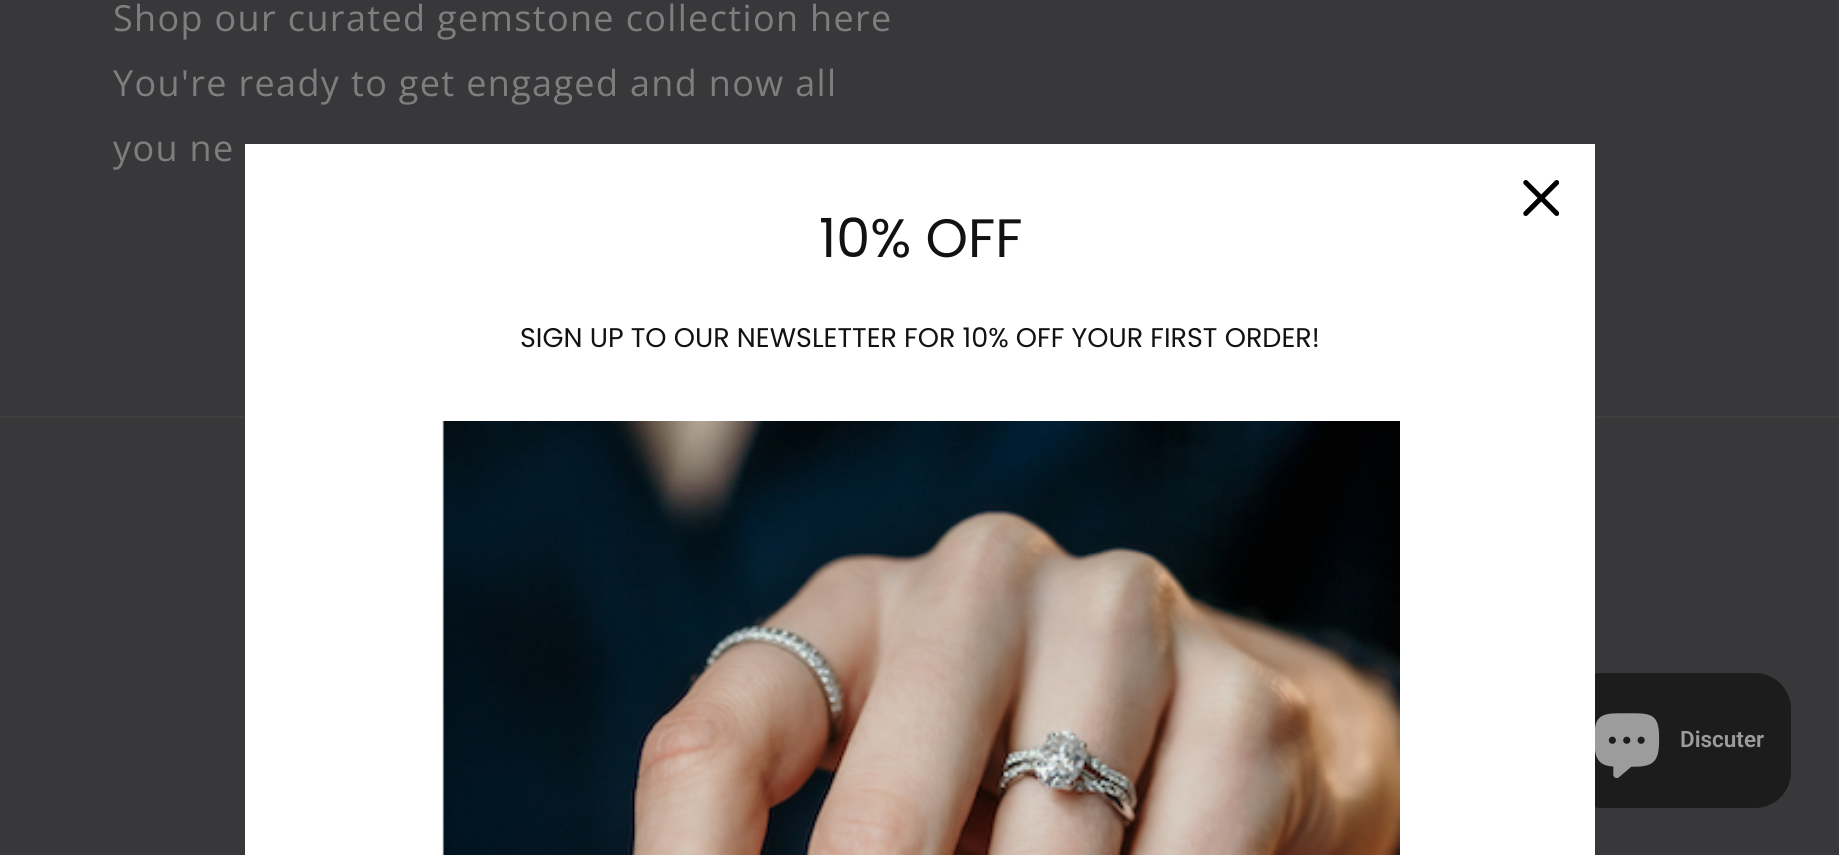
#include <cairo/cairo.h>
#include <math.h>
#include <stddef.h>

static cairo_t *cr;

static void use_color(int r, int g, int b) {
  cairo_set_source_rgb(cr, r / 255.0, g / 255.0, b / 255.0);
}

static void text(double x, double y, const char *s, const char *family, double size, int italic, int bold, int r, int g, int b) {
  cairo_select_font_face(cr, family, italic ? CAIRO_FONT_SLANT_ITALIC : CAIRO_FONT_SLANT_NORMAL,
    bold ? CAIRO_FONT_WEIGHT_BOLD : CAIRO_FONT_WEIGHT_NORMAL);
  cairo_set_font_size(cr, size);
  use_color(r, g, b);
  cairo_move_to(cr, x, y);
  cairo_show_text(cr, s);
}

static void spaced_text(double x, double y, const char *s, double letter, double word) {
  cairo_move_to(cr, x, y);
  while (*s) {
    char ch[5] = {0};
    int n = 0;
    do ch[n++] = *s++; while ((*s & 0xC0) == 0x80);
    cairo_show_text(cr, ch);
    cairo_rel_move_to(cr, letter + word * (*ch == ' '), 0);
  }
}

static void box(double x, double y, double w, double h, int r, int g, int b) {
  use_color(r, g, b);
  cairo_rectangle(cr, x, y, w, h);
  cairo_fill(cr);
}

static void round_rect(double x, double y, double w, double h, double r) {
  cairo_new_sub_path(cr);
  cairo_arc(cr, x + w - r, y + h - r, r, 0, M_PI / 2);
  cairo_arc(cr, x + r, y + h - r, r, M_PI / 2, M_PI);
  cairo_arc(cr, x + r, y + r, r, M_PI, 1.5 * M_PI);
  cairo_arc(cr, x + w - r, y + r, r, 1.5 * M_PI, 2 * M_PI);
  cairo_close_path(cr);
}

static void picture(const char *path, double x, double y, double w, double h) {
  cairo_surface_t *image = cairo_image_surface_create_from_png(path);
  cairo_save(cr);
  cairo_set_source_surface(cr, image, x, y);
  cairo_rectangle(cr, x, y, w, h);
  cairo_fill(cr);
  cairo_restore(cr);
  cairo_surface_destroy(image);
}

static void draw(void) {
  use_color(56, 56, 58);
  cairo_paint(cr);
  box(0, 416, 1839, 2, 64, 64, 65);
  use_color(28, 28, 28);
  round_rect(1566, 673, 225, 135, 36);
  cairo_fill(cr);
  box(245, 144, 1350, 711, 255, 255, 255);
  picture("img_01.png", 1523, 180, 36, 36);
  picture("img_02.png", 442, 421, 958, 434);
  picture("img_03.png", 1595, 713, 65, 65);
  cairo_select_font_face(cr, "Open Sans", CAIRO_FONT_SLANT_NORMAL, CAIRO_FONT_WEIGHT_NORMAL);
  cairo_set_font_size(cr, 36);
  use_color(126, 126, 127);
  spaced_text(113, 31, "Shop our curated gemstone collection here", 1.35, 0);
  spaced_text(113, 96, "You're ready to get engaged and now all", 1.35, 0);
  spaced_text(113, 161, "you ne", 1.35, 0);
  text(819, 257, "10% OFF", "Poppins", 54, 0, 0, 18, 18, 18);
  text(520, 347, "SIGN UP TO OUR NEWSLETTER FOR 10% OFF YOUR FIRST ORDER!", "Poppins", 27, 0, 0, 18, 18, 18);
  text(1680, 747, "Discuter", "Roboto SemiBold", 22.5, 0, 0, 156, 156, 156);
}

int main(void) {
  cairo_surface_t *surface = cairo_image_surface_create(CAIRO_FORMAT_RGB24, 1839, 855);
  cr = cairo_create(surface);
  cairo_font_options_t *options = cairo_font_options_create();
  cairo_font_options_set_hint_metrics(options, CAIRO_HINT_METRICS_OFF);
  cairo_font_options_set_hint_style(options, CAIRO_HINT_STYLE_NONE);
  cairo_set_font_options(cr, options);
  cairo_set_miter_limit(cr, 4);
  draw();
  cairo_surface_write_to_png(surface, "out.png");
  cairo_font_options_destroy(options);
  cairo_destroy(cr);
  cairo_surface_destroy(surface);
  return 0;
}
